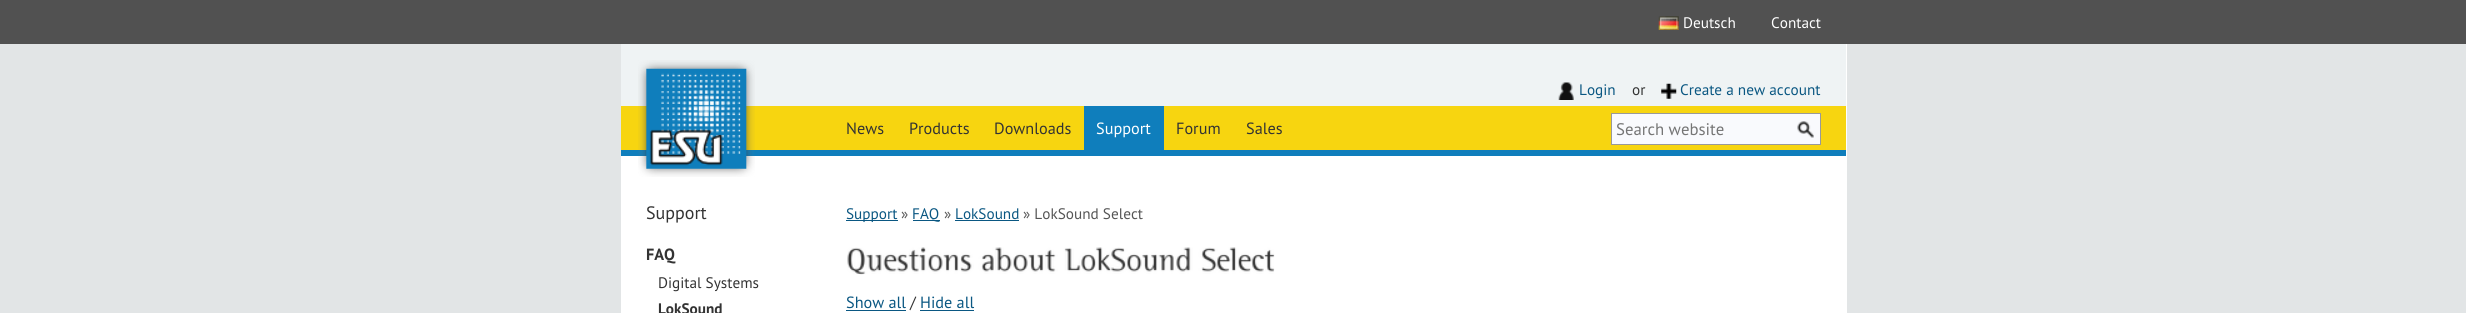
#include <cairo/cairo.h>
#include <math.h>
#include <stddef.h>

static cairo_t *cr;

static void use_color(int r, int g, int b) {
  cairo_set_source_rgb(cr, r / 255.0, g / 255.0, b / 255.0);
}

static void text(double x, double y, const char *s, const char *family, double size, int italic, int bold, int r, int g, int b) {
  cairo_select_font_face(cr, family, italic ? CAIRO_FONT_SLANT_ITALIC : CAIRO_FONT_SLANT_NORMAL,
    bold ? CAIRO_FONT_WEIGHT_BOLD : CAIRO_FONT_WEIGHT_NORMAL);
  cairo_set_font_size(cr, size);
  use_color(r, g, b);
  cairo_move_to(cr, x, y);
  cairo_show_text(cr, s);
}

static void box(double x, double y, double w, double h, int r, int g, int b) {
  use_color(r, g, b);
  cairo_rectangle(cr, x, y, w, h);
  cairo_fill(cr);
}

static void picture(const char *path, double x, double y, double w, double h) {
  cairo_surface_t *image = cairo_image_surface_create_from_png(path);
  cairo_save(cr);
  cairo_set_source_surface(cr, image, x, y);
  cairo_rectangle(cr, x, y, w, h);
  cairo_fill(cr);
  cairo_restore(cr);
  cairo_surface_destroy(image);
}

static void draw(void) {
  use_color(226, 229, 230);
  cairo_paint(cr);
  box(621, 44, 1226, 269, 255, 255, 255);
  box(0, 0, 2466, 44, 81, 81, 81);
  picture("img_01.png", 1658, 16, 21, 14);
  box(621, 44, 1225, 62, 239, 243, 244);
  box(621, 106, 1225, 44, 247, 213, 16);
  box(621, 150, 1225, 6, 15, 126, 188);
  picture("img_02.png", 638, 60, 117, 117);
  picture("img_03.png", 1558, 82, 16, 18);
  picture("img_04.png", 1661, 83, 16, 16);
  box(1084, 106, 80, 44, 15, 126, 188);
  use_color(249, 250, 253);
  cairo_rectangle(cr, 1611.5, 113.5, 209, 31);
  cairo_fill_preserve(cr);
  use_color(153, 153, 153);
  cairo_set_line_width(cr, 1);
  cairo_stroke(cr);
  picture("img_05.png", 1797, 121, 17, 17);
  box(846, 220, 52, 1, 10, 87, 130);
  box(913, 220, 27, 1, 10, 87, 130);
  box(955, 220, 64, 1, 10, 87, 130);
  picture("img_06.png", 847, 247, 428, 28);
  box(846, 310, 60, 1, 10, 87, 130);
  box(920, 310, 54, 1, 10, 87, 130);
  text(1683, 28, "Deutsch", "PT Sans", 15.25, 0, 0, 255, 255, 255);
  text(1771, 28, "Contact", "PT Sans", 15.25, 0, 0, 255, 255, 255);
  text(1579, 95, "Login", "PT Sans", 15.25, 0, 0, 10, 87, 130);
  text(1632, 95, "or", "PT Sans", 15.25, 0, 0, 51, 51, 51);
  text(1680, 95, "Create a new account", "PT Sans", 15.25, 0, 0, 10, 87, 130);
  text(846, 134, "News", "PT Sans", 16.25, 0, 0, 51, 51, 51);
  text(909, 134, "Products", "PT Sans", 16.25, 0, 0, 51, 51, 51);
  text(994, 134, "Downloads", "PT Sans", 16.25, 0, 0, 51, 51, 51);
  text(1096, 134, "Support", "PT Sans", 16.25, 0, 0, 255, 255, 255);
  text(1176, 134, "Forum", "PT Sans", 16.25, 0, 0, 51, 51, 51);
  text(1246, 134, "Sales", "PT Sans", 16.25, 0, 0, 51, 51, 51);
  text(1616, 135, "Search website", "PT Sans", 16.75, 0, 0, 117, 117, 117);
  text(646, 219, "Support", "PT Sans", 18, 0, 0, 51, 51, 51);
  text(646, 260, "FAQ", "PT Sans", 16.25, 0, 1, 51, 51, 51);
  text(658, 288, "Digital Systems", "PT Sans", 15.25, 0, 0, 51, 51, 51);
  text(658, 314, "LokSound", "PT Sans", 15.25, 0, 1, 51, 51, 51);
  text(846, 219, "Support", "PT Sans", 15.25, 0, 0, 10, 87, 130);
  text(901, 219, "»", "PT Sans", 15.25, 0, 0, 85, 85, 85);
  text(912, 219, "FAQ", "PT Sans", 15.25, 0, 0, 10, 87, 130);
  text(944, 219, "»", "PT Sans", 15.25, 0, 0, 85, 85, 85);
  text(955, 219, "LokSound", "PT Sans", 15.25, 0, 0, 10, 87, 130);
  text(1023, 219, "» LokSound Select", "PT Sans", 15.25, 0, 0, 85, 85, 85);
  text(846, 308, "Show all", "PT Sans", 16.25, 0, 0, 10, 87, 130);
  text(910, 308, "/", "PT Sans", 16.25, 0, 0, 51, 51, 51);
  text(920, 308, "Hide all", "PT Sans", 16.25, 0, 0, 10, 87, 130);
}

int main(void) {
  cairo_surface_t *surface = cairo_image_surface_create(CAIRO_FORMAT_RGB24, 2466, 313);
  cr = cairo_create(surface);
  cairo_font_options_t *options = cairo_font_options_create();
  cairo_font_options_set_hint_metrics(options, CAIRO_HINT_METRICS_OFF);
  cairo_font_options_set_hint_style(options, CAIRO_HINT_STYLE_NONE);
  cairo_set_font_options(cr, options);
  cairo_set_miter_limit(cr, 4);
  draw();
  cairo_surface_write_to_png(surface, "out.png");
  cairo_font_options_destroy(options);
  cairo_destroy(cr);
  cairo_surface_destroy(surface);
  return 0;
}
